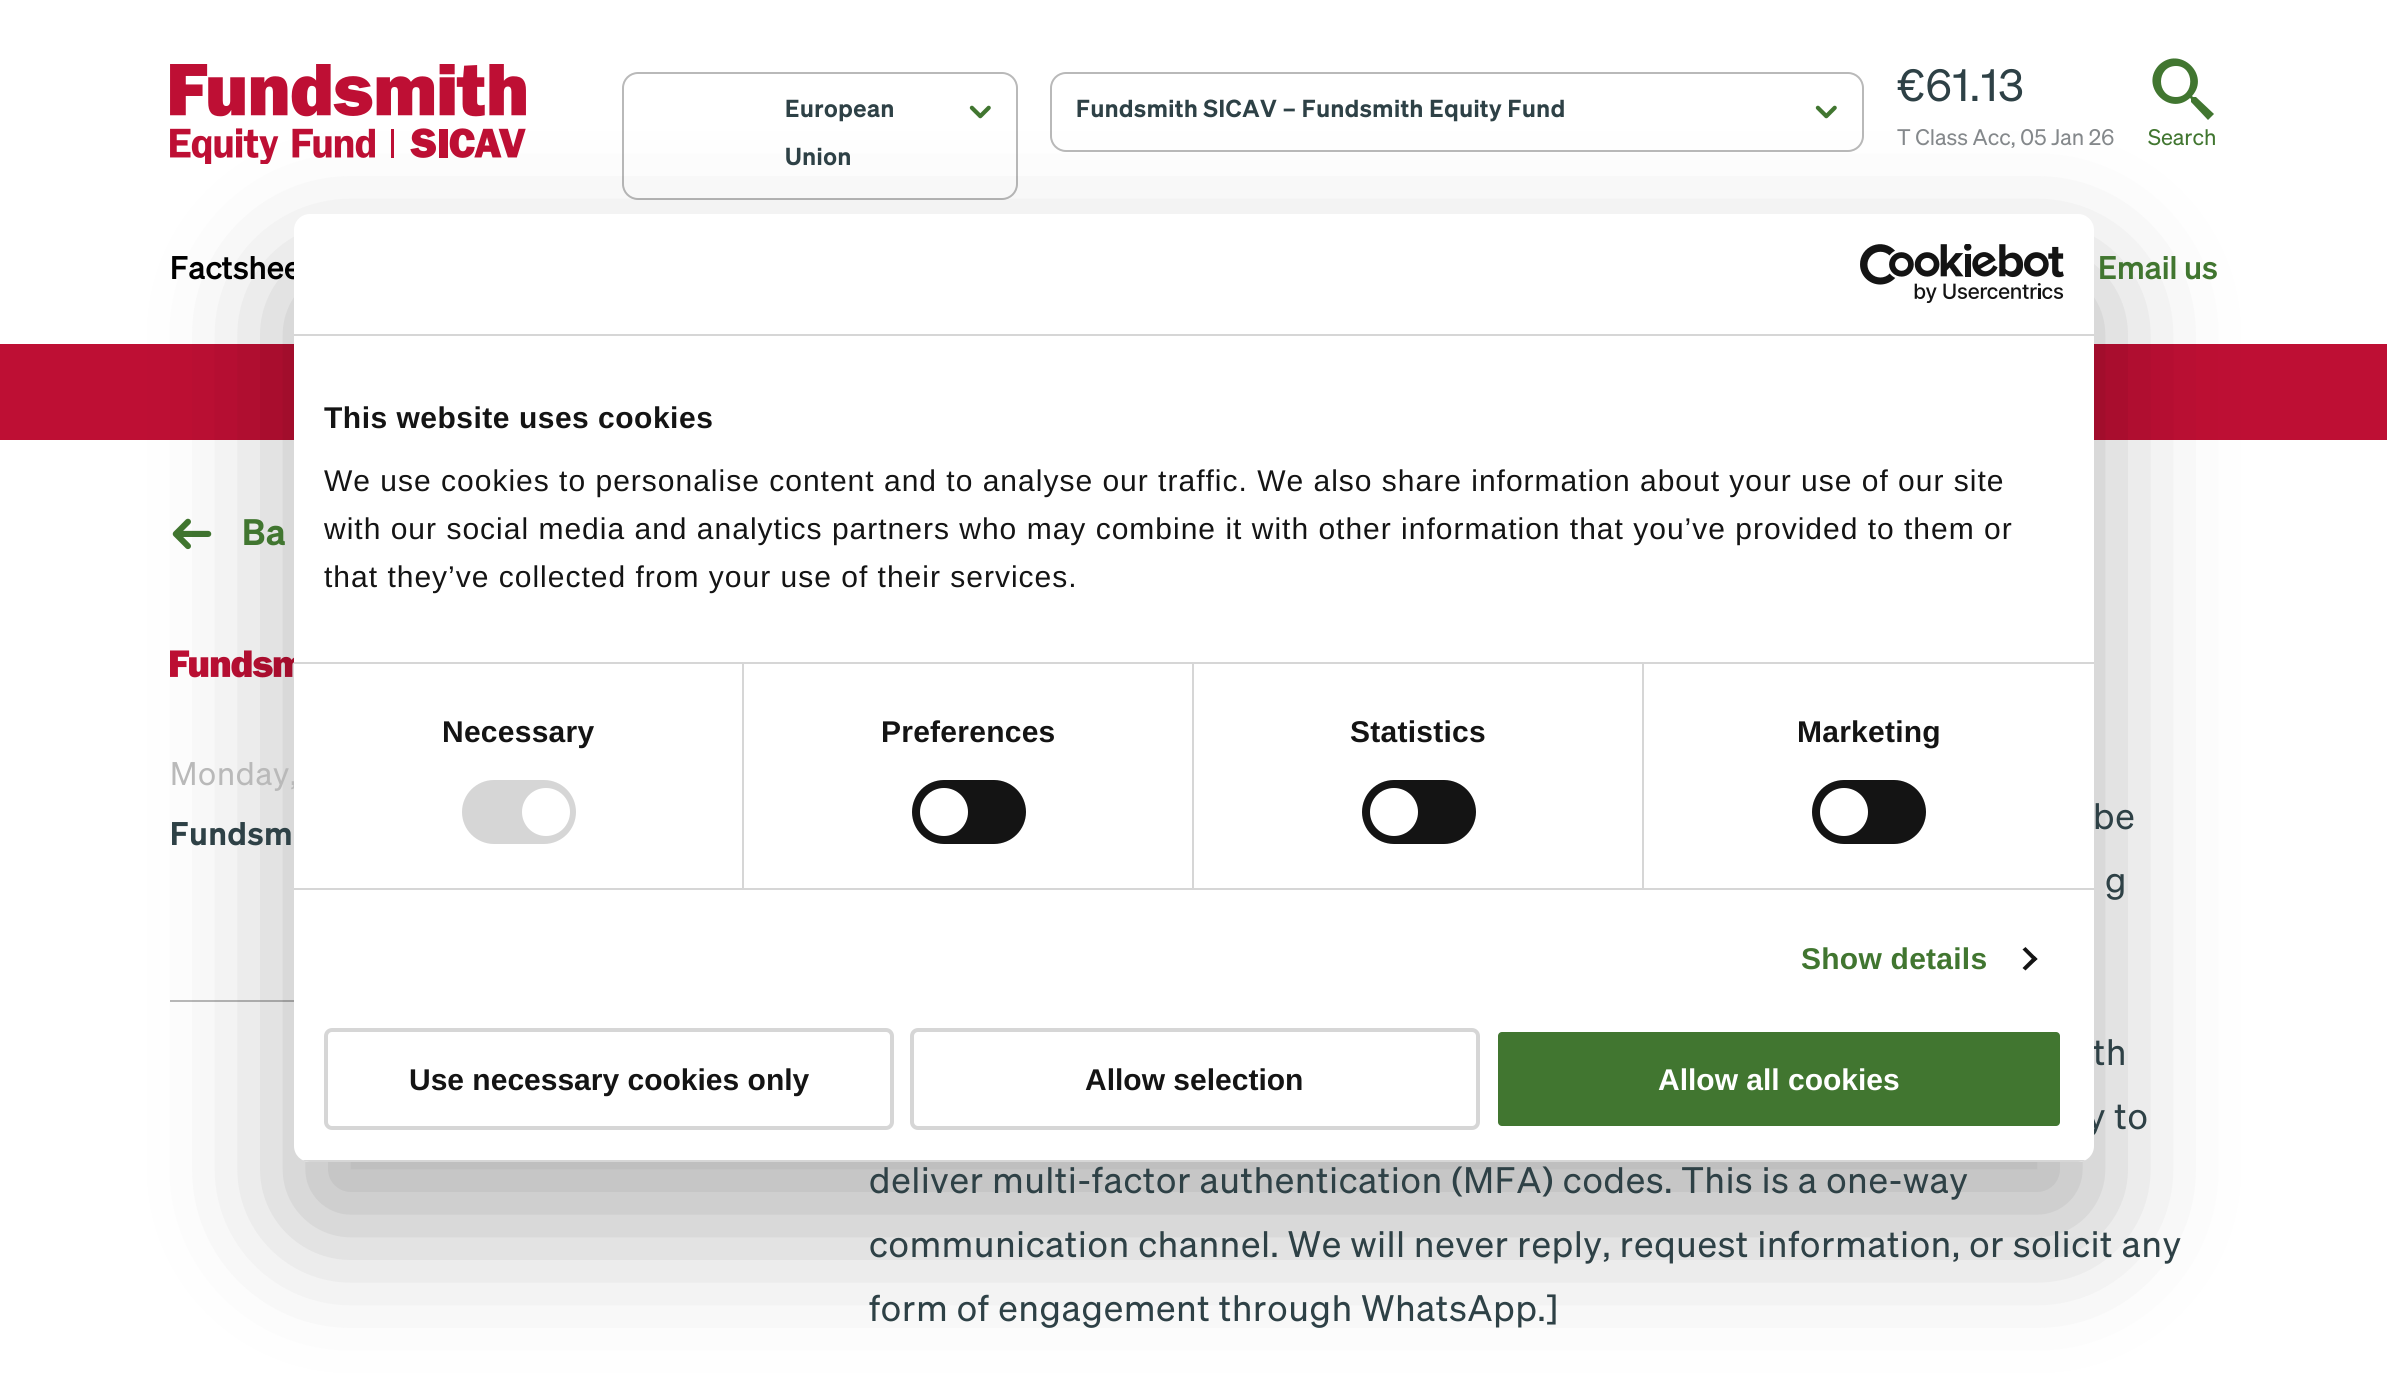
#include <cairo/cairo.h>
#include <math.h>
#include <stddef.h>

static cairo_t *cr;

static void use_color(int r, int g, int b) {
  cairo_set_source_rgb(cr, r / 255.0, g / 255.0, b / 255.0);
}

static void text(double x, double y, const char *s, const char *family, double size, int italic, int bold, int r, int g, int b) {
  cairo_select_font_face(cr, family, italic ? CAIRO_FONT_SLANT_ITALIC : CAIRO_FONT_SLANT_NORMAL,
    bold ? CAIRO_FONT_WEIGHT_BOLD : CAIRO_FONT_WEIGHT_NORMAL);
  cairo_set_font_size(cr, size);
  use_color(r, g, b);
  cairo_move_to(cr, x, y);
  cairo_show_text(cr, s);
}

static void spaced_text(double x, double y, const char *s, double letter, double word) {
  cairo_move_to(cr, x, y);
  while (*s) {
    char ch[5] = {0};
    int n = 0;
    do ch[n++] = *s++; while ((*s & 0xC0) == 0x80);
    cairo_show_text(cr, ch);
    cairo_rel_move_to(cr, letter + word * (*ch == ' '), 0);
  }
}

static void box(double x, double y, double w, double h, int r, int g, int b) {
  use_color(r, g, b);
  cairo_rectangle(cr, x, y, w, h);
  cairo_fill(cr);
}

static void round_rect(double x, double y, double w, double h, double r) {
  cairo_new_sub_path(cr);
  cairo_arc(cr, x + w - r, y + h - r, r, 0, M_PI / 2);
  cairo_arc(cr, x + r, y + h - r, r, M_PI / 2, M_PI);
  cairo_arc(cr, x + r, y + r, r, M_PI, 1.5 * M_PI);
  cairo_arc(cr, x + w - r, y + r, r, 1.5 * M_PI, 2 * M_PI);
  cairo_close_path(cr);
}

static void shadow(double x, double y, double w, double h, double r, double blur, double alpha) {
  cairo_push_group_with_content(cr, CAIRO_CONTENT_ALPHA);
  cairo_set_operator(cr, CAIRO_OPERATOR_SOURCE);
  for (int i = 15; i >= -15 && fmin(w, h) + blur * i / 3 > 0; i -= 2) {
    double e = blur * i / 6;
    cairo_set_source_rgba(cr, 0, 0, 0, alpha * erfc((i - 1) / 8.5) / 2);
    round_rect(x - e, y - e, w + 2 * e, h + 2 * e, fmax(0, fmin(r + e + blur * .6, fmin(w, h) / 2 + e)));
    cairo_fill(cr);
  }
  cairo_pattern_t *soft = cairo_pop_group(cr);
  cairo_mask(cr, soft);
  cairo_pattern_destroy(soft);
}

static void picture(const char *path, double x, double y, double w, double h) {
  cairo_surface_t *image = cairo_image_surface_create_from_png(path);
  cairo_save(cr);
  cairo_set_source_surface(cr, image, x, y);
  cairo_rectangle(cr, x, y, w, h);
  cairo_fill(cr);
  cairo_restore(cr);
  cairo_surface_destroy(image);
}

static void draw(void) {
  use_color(255, 255, 255);
  cairo_paint(cr);
  box(0, 344, 2387, 96, 190, 15, 52);
  picture("img_01.png", 170, 64, 356, 100);
  round_rect(623, 73, 394, 126, 15);
  use_color(185, 185, 185);
  cairo_stroke(cr);
  picture("img_02.png", 969, 105, 22, 14);
  round_rect(1051, 73, 812, 78, 15);
  cairo_stroke(cr);
  picture("img_02.png", 1815, 105, 22, 14);
  use_color(65, 118, 48);
  cairo_new_path(cr);
  cairo_move_to(cr, 2196, 97);
  cairo_line_to(cr, 2193, 97);
  cairo_line_to(cr, 2192, 96);
  cairo_curve_to(cr, 2211, 75, 2180, 45, 2159, 65);
  cairo_curve_to(cr, 2139, 86, 2169, 117, 2190, 98);
  cairo_line_to(cr, 2191, 99);
  cairo_line_to(cr, 2191, 102);
  cairo_line_to(cr, 2208, 120);
  cairo_line_to(cr, 2214, 114);
  cairo_close_path(cr);
  cairo_move_to(cr, 2176, 97);
  cairo_curve_to(cr, 2156, 97, 2156, 66, 2176, 66);
  cairo_curve_to(cr, 2195, 66, 2195, 97, 2176, 97);
  cairo_close_path(cr);
  cairo_fill(cr);
  picture("img_03.png", 172, 518, 40, 32);
  box(170, 1000, 124, 2, 185, 185, 185);
  picture("img_04.png", 170, 650, 124, 28);
  use_color(0, 0, 0);
  shadow(294, 278, 1800, 948, 16, 68, 0.3);
  cairo_select_font_face(cr, "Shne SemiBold", CAIRO_FONT_SLANT_NORMAL, CAIRO_FONT_WEIGHT_NORMAL);
  cairo_set_font_size(cr, 24);
  use_color(46, 65, 70);
  spaced_text(785, 117, "European", 0.55, 0);
  spaced_text(785, 165, "Union", 0.55, 0);
  spaced_text(1076, 117, "Fundsmith SICAV – Fundsmith Equity Fund", 0.55, 0);
  cairo_select_font_face(cr, "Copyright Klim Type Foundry", CAIRO_FONT_SLANT_NORMAL, CAIRO_FONT_WEIGHT_NORMAL);
  cairo_set_font_size(cr, 44);
  spaced_text(1897, 101, "€61.13", 1, 0);
  text(1897, 145, "T Class Acc, 05 Jan 26", "Copyright Klim Type Foundry", 22, 0, 0, 132, 136, 139);
  text(2148, 145, "Search", "Copyright Klim Type Foundry", 22, 0, 0, 65, 118, 48);
  text(170, 279, "Factshee", "Shne Medium", 32, 0, 0, 0, 0, 0);
  text(2098, 279, "Email us", "Shne Medium", 32, 0, 0, 65, 118, 48);
  cairo_select_font_face(cr, "Shne SemiBold", CAIRO_FONT_SLANT_NORMAL, CAIRO_FONT_WEIGHT_NORMAL);
  cairo_set_font_size(cr, 36);
  spaced_text(242, 545, "Ba", 0.82, 0);
  cairo_select_font_face(cr, "Copyright Klim Type Foundry", CAIRO_FONT_SLANT_NORMAL, CAIRO_FONT_WEIGHT_NORMAL);
  cairo_set_font_size(cr, 32);
  use_color(185, 185, 185);
  spaced_text(170, 785, "Monday,", 0.75, 0);
  cairo_select_font_face(cr, "Shne SemiBold", CAIRO_FONT_SLANT_NORMAL, CAIRO_FONT_WEIGHT_NORMAL);
  use_color(46, 65, 70);
  spaced_text(170, 845, "Fundsm", 0.75, 0);
  cairo_select_font_face(cr, "Copyright Klim Type Foundry", CAIRO_FONT_SLANT_NORMAL, CAIRO_FONT_WEIGHT_NORMAL);
  cairo_set_font_size(cr, 36);
  spaced_text(2093, 829, "be", 0.82, 0);
  spaced_text(2105, 893, "g", 0.82, 0);
  spaced_text(2093, 1065, "th", 0.82, 0);
  spaced_text(2087, 1129, "y to", 0.82, 0);
  spaced_text(869, 1193, "deliver multi-factor authentication (MFA) codes. This is a one-way", 0.82, 0);
  spaced_text(869, 1257, "communication channel. We will never reply, request information, or solicit any", 0.82, 0);
  spaced_text(869, 1321, "form of engagement through WhatsApp.]", 0.82, 0);
  use_color(255, 255, 255);
  round_rect(294, 214, 1800, 948, 16);
  cairo_fill(cr);
  box(294, 334, 1800, 2, 214, 214, 214);
  picture("img_05.png", 1860, 244, 204, 60);
  box(294, 662, 1800, 2, 214, 214, 214);
  cairo_select_font_face(cr, "Liberation Sans", CAIRO_FONT_SLANT_NORMAL, CAIRO_FONT_WEIGHT_BOLD);
  cairo_set_font_size(cr, 30);
  use_color(20, 20, 20);
  spaced_text(324, 428, "This website uses cookies", 0.5, 0);
  cairo_select_font_face(cr, "Liberation Sans", CAIRO_FONT_SLANT_NORMAL, CAIRO_FONT_WEIGHT_NORMAL);
  spaced_text(324, 491, "We use cookies to personalise content and to analyse our traffic. We also share information about your use of our site", 1, 0);
  spaced_text(324, 539, "with our social media and analytics partners who may combine it with other information that you’ve provided to them or", 1, 0);
  spaced_text(324, 587, "that they’ve collected from your use of their services.", 1, 0);
  box(294, 888, 1800, 2, 214, 214, 214);
  box(742, 664, 2, 224, 214, 214, 214);
  cairo_select_font_face(cr, "Liberation Sans", CAIRO_FONT_SLANT_NORMAL, CAIRO_FONT_WEIGHT_BOLD);
  use_color(20, 20, 20);
  spaced_text(442, 742, "Necessary", 0.25, 0);
  use_color(214, 214, 214);
  round_rect(462, 780, 114, 64, 32);
  cairo_fill(cr);
  use_color(255, 255, 255);
  cairo_arc(cr, 546, 812, 24, 0, 2 * M_PI);
  cairo_fill(cr);
  box(1192, 664, 2, 224, 214, 214, 214);
  use_color(20, 20, 20);
  spaced_text(881, 742, "Preferences", 0.25, 0);
  round_rect(912, 780, 114, 64, 32);
  cairo_fill(cr);
  use_color(255, 255, 255);
  cairo_arc(cr, 944, 812, 24, 0, 2 * M_PI);
  cairo_fill(cr);
  box(1642, 664, 2, 224, 214, 214, 214);
  use_color(20, 20, 20);
  spaced_text(1350, 742, "Statistics", 0.25, 0);
  round_rect(1362, 780, 114, 64, 32);
  cairo_fill(cr);
  use_color(255, 255, 255);
  cairo_arc(cr, 1394, 812, 24, 0, 2 * M_PI);
  cairo_fill(cr);
  use_color(20, 20, 20);
  spaced_text(1797, 742, "Marketing", 0.25, 0);
  round_rect(1812, 780, 114, 64, 32);
  cairo_fill(cr);
  use_color(255, 255, 255);
  cairo_arc(cr, 1844, 812, 24, 0, 2 * M_PI);
  cairo_fill(cr);
  use_color(65, 118, 48);
  spaced_text(1801, 969, "Show details", 0.25, 0);
  use_color(20, 20, 20);
  cairo_new_path(cr);
  cairo_move_to(cr, 2025.5, 947);
  cairo_line_to(cr, 2037.5, 959);
  cairo_line_to(cr, 2034.5, 961.5);
  cairo_line_to(cr, 2022.5, 949.5);
  cairo_close_path(cr);
  cairo_fill(cr);
  cairo_new_path(cr);
  cairo_move_to(cr, 2034.5, 956);
  cairo_line_to(cr, 2037.5, 959);
  cairo_line_to(cr, 2025.5, 970.5);
  cairo_line_to(cr, 2022.5, 968);
  cairo_close_path(cr);
  cairo_fill(cr);
  cairo_save(cr);
  round_rect(294, 214, 1800, 948, 16);
  cairo_clip(cr);
  box(294, 1160, 1800, 2, 214, 214, 214);
  cairo_restore(cr);
  round_rect(326, 1030, 566, 98, 6);
  use_color(214, 214, 214);
  cairo_set_line_width(cr, 4);
  cairo_stroke(cr);
  text(409, 1090, "Use necessary cookies only", "Liberation Sans", 30, 0, 1, 20, 20, 20);
  round_rect(912, 1030, 566, 98, 6);
  use_color(214, 214, 214);
  cairo_stroke(cr);
  text(1085, 1090, "Allow selection", "Liberation Sans", 30, 0, 1, 20, 20, 20);
  use_color(65, 118, 48);
  round_rect(1496, 1030, 566, 98, 6);
  cairo_fill_preserve(cr);
  use_color(255, 255, 255);
  cairo_stroke(cr);
  text(1658, 1090, "Allow all cookies", "Liberation Sans", 30, 0, 1, 255, 255, 255);
}

int main(void) {
  cairo_surface_t *surface = cairo_image_surface_create(CAIRO_FORMAT_RGB24, 2387, 1374);
  cr = cairo_create(surface);
  cairo_font_options_t *options = cairo_font_options_create();
  cairo_font_options_set_hint_metrics(options, CAIRO_HINT_METRICS_OFF);
  cairo_font_options_set_hint_style(options, CAIRO_HINT_STYLE_NONE);
  cairo_set_font_options(cr, options);
  cairo_set_miter_limit(cr, 4);
  draw();
  cairo_surface_write_to_png(surface, "out.png");
  cairo_font_options_destroy(options);
  cairo_destroy(cr);
  cairo_surface_destroy(surface);
  return 0;
}
